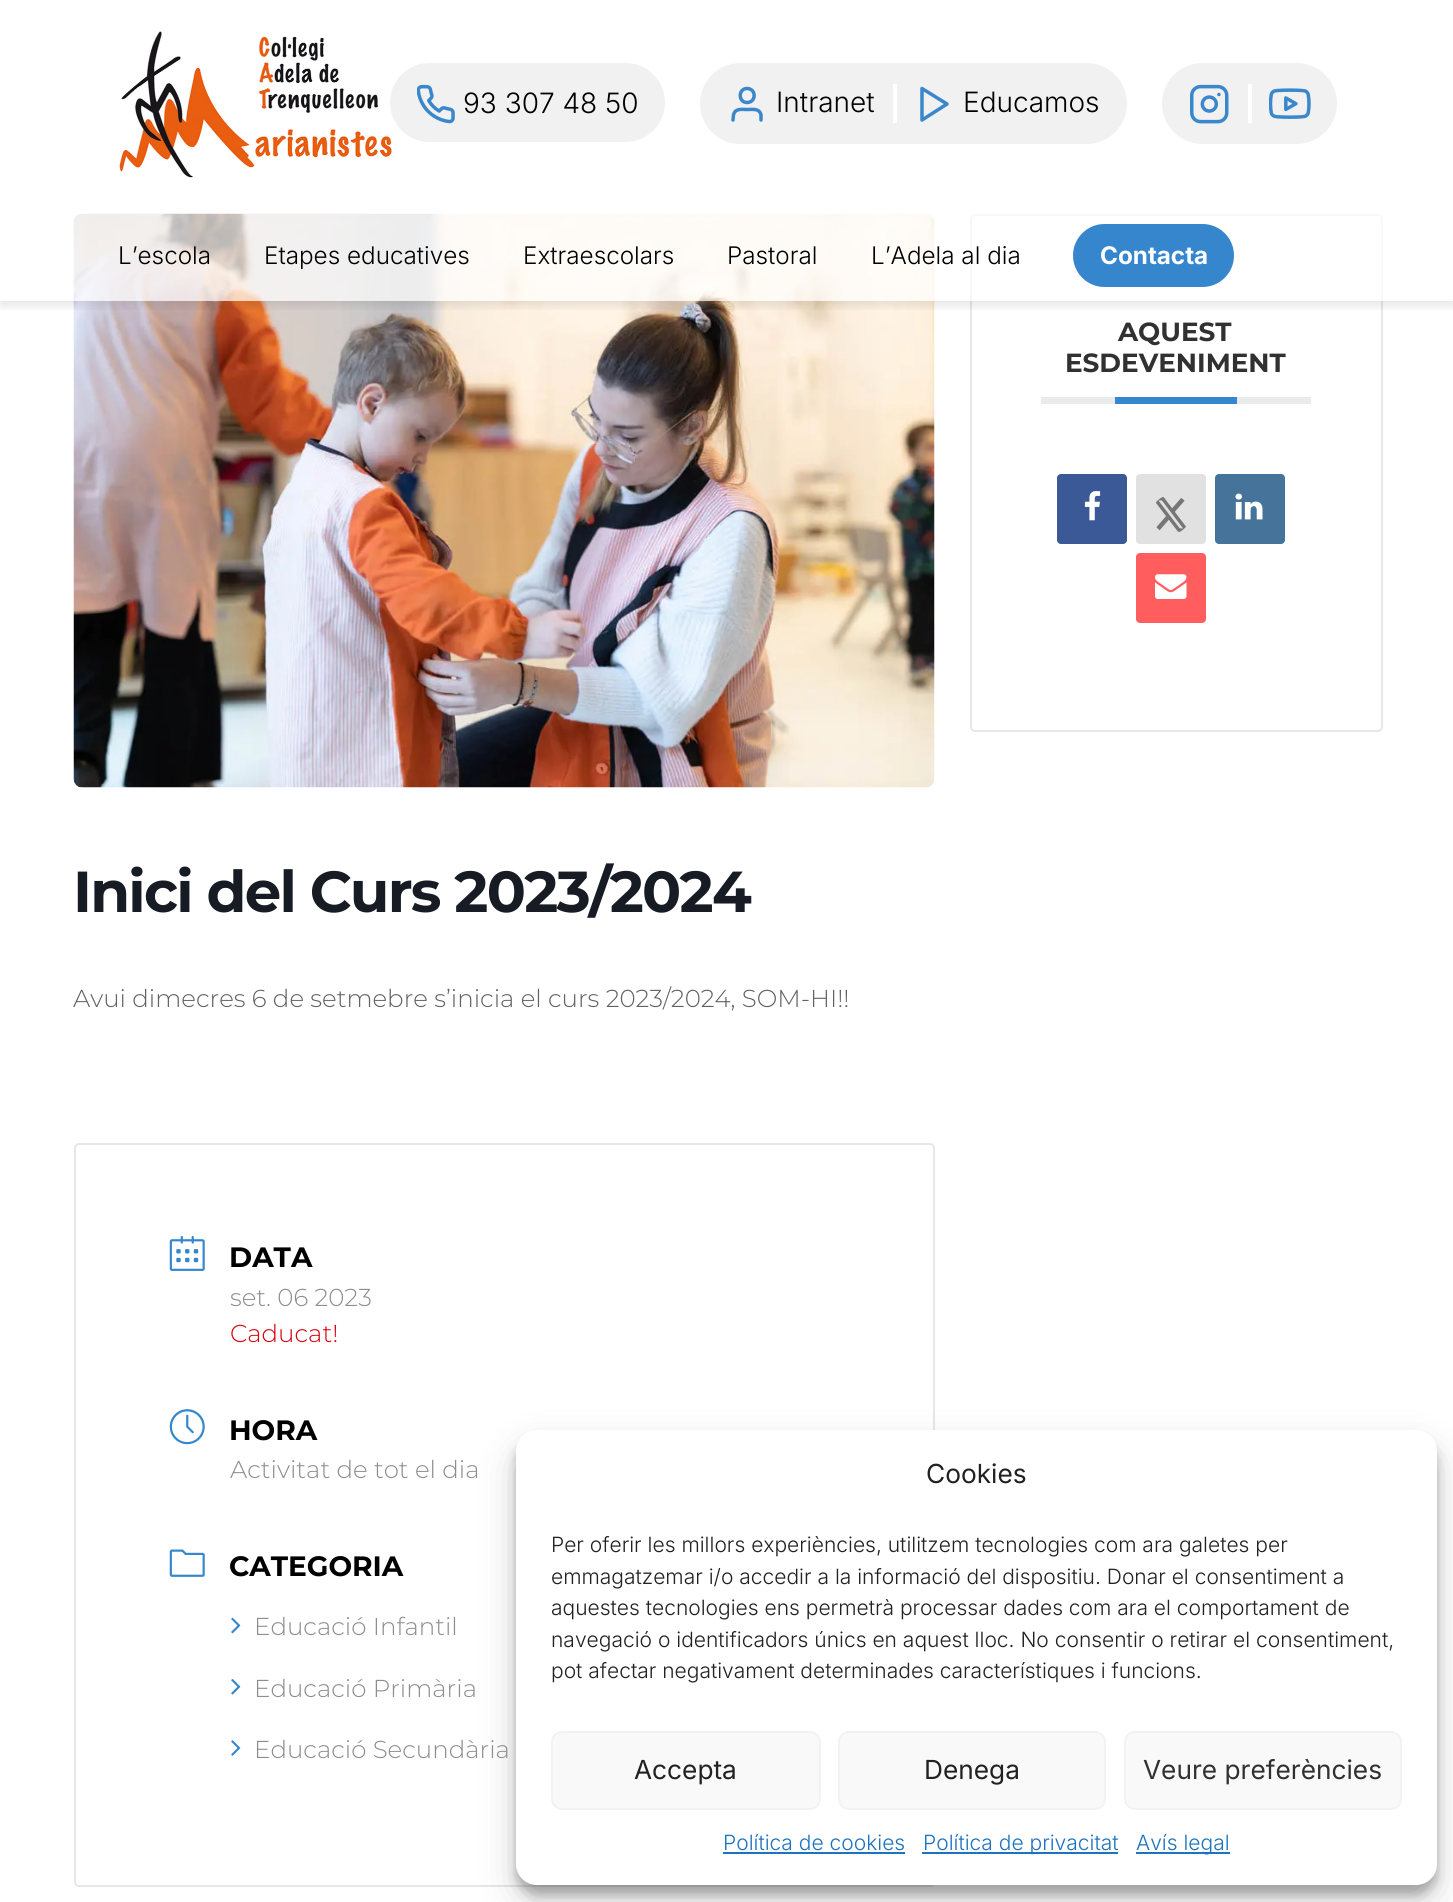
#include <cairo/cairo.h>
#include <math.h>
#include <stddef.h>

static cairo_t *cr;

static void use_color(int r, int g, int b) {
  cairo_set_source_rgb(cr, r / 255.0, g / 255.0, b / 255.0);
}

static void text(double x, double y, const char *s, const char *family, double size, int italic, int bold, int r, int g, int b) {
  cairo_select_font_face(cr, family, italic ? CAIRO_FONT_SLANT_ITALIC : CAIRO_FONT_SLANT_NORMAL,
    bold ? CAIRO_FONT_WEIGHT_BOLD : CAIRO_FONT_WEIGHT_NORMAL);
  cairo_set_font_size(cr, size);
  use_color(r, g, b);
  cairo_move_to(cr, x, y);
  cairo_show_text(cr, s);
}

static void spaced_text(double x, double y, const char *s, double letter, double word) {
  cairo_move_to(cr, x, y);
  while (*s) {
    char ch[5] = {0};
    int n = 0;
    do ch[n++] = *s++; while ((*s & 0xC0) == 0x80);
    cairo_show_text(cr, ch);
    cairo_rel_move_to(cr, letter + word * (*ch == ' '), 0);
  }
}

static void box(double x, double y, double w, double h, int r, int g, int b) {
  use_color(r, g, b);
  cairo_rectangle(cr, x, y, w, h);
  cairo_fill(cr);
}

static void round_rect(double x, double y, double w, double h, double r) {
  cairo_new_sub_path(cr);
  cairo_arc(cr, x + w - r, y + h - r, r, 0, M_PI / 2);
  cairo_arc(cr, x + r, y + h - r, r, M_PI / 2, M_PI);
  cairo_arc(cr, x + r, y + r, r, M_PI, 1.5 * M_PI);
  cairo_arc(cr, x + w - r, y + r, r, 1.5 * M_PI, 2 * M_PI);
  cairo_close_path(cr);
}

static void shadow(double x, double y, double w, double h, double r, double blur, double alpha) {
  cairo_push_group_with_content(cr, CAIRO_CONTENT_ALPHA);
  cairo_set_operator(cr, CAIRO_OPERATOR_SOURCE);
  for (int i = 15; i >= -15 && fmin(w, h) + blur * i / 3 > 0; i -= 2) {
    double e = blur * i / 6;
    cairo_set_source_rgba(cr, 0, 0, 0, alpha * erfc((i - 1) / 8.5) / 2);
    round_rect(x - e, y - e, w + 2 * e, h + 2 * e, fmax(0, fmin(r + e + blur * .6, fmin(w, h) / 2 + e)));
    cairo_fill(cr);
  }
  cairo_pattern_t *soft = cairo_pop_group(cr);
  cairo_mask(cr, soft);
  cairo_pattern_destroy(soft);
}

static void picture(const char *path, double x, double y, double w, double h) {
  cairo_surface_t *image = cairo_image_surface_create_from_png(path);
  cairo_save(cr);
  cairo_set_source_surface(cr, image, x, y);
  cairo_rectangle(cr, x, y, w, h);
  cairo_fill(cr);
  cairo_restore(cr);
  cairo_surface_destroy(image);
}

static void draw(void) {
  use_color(255, 255, 255);
  cairo_paint(cr);
  round_rect(971, 215, 411, 516, 4);
  use_color(230, 231, 232);
  cairo_stroke(cr);
  picture("img_09.png", 73, 213, 862, 575);
  cairo_save(cr);
  cairo_rectangle(cr, 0, 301, 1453, 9);
  cairo_clip(cr);
  use_color(0, 0, 0);
  shadow(0, 5, 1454, 301, 0, 5, 0.1);
  cairo_restore(cr);
  picture("img_01.png", 119, 31, 273, 147);
  use_color(241, 241, 241);
  round_rect(390, 63, 275, 79, 39.5);
  cairo_fill(cr);
  picture("img_02.png", 417, 84, 38, 40);
  round_rect(700, 63, 427, 81, 40.5);
  cairo_fill(cr);
  cairo_new_path(cr);
  cairo_move_to(cr, 761, 120);
  cairo_line_to(cr, 761, 115);
  cairo_curve_to(cr, 759.5, 108, 752.5, 109.5, 747, 109.5);
  cairo_curve_to(cr, 742, 109.5, 735, 108, 733.5, 115);
  cairo_line_to(cr, 733, 120);
  cairo_move_to(cr, 747, 102.5);
  cairo_curve_to(cr, 756.5, 102.5, 756.5, 88.5, 747, 88.5);
  cairo_curve_to(cr, 738, 88.5, 738, 102.5, 747, 102.5);
  cairo_close_path(cr);
  use_color(58, 136, 203);
  cairo_set_line_width(cr, 3.5);
  cairo_set_line_cap(cr, CAIRO_LINE_CAP_ROUND);
  cairo_set_line_join(cr, CAIRO_LINE_JOIN_ROUND);
  cairo_stroke(cr);
  box(893, 84, 4, 39, 255, 255, 255);
  cairo_new_path(cr);
  cairo_move_to(cr, 922, 88.5);
  cairo_line_to(cr, 947, 104);
  cairo_line_to(cr, 922, 120);
  cairo_close_path(cr);
  use_color(58, 136, 203);
  cairo_stroke(cr);
  use_color(241, 241, 241);
  round_rect(1162, 63, 175, 81, 40.5);
  cairo_fill(cr);
  picture("img_03.png", 1190, 84, 39, 40);
  box(1248, 84, 4, 39, 255, 255, 255);
  picture("img_04.png", 1269, 88, 42, 31);
  cairo_set_source_rgba(cr, 1, 1, 1, 0.7);
  cairo_rectangle(cr, 73, 213, 1310, 88);
  cairo_fill(cr);
  use_color(53, 134, 205);
  round_rect(1073, 224, 161, 63, 31.5);
  cairo_fill(cr);
  box(1041, 397, 270, 7, 235, 235, 235);
  box(1115, 397, 122, 7, 53, 134, 205);
  use_color(59, 89, 150);
  round_rect(1057, 474, 70, 70, 4);
  cairo_fill(cr);
  picture("img_05.png", 1084, 491, 17, 30);
  use_color(225, 225, 225);
  round_rect(1136, 474, 70, 70, 4);
  cairo_fill(cr);
  picture("img_06.png", 1155, 497, 31, 35);
  use_color(69, 115, 153);
  round_rect(1215, 474, 70, 70, 4);
  cairo_fill(cr);
  picture("img_07.png", 1235, 493, 28, 27);
  use_color(255, 93, 94);
  round_rect(1136, 553, 70, 70, 4);
  cairo_fill(cr);
  picture("img_08.png", 1155, 574, 32, 25);
  round_rect(75, 1144, 859, 742, 4);
  use_color(230, 231, 232);
  cairo_set_line_width(cr, 2);
  cairo_set_line_cap(cr, CAIRO_LINE_CAP_BUTT);
  cairo_set_line_join(cr, CAIRO_LINE_JOIN_MITER);
  cairo_stroke(cr);
  picture("img_10.png", 169, 1236, 36, 35);
  picture("img_11.png", 169, 1409, 36, 36);
  picture("img_12.png", 169, 1549, 36, 28);
  picture("img_13.png", 231, 1617, 10, 17);
  picture("img_14.png", 231, 1679, 10, 16);
  picture("img_15.png", 231, 1740, 10, 16);
  use_color(0, 0, 0);
  shadow(516, 1440, 921, 455, 21, 5, 0.23);
  shadow(516, 1447, 921, 455, 21, 17.5, 0.19);
  use_color(255, 255, 255);
  round_rect(516, 1430, 921, 455, 21);
  cairo_fill(cr);
  use_color(249, 249, 249);
  round_rect(552, 1732, 268, 77, 10);
  cairo_fill_preserve(cr);
  use_color(242, 242, 242);
  cairo_stroke(cr);
  use_color(249, 249, 249);
  round_rect(839, 1732, 266, 77, 10);
  cairo_fill_preserve(cr);
  use_color(242, 242, 242);
  cairo_stroke(cr);
  use_color(249, 249, 249);
  round_rect(1125, 1732, 276, 77, 10);
  cairo_fill_preserve(cr);
  use_color(242, 242, 242);
  cairo_stroke(cr);
  box(723, 1852, 182, 2, 30, 115, 190);
  box(922, 1852, 196, 2, 30, 115, 190);
  box(1136, 1852, 94, 2, 30, 115, 190);
  text(463, 113, "93 307 48 50", "Inter Light", 28, 0, 0, 0, 0, 0);
  text(776, 112, "Intranet", "Inter Light", 28, 0, 0, 0, 0, 0);
  text(963, 112, "Educamos", "Inter Light", 28, 0, 0, 0, 0, 0);
  text(118, 264, "L’escola", "Inter Light", 24.25, 0, 0, 0, 0, 0);
  text(264, 264, "Etapes educatives", "Inter Light", 24.25, 0, 0, 0, 0, 0);
  text(523, 264, "Extraescolars", "Inter Light", 24.25, 0, 0, 0, 0, 0);
  text(727, 264, "Pastoral", "Inter Light", 24.25, 0, 0, 0, 0, 0);
  text(871, 264, "L’Adela al dia", "Inter Light", 24.25, 0, 0, 0, 0, 0);
  text(1100, 264, "Contacta", "Inter", 24.25, 0, 1, 255, 255, 255);
  text(1118, 341, "AQUEST", "Montserrat", 26.25, 0, 1, 49, 49, 49);
  text(1065, 372, "ESDEVENIMENT", "Montserrat", 26.25, 0, 1, 49, 49, 49);
  cairo_set_font_size(cr, 57.75);
  use_color(23, 28, 36);
  spaced_text(73, 912, "Inici del Curs 2023/2024", -1.75, 0);
  text(73, 1007, "Avui dimecres 6 de setmebre s’inicia el curs 2023/2024, SOM-HI!!", "Montserrat Light", 24.5, 0, 0, 97, 97, 97);
  text(229, 1267, "DATA", "Montserrat", 28, 0, 1, 0, 0, 0);
  text(230, 1306, "set. 06 2023", "Montserrat Light", 24.5, 0, 0, 141, 141, 141);
  text(230, 1342, "Caducat!", "Montserrat Light", 24.5, 0, 0, 216, 0, 12);
  text(229, 1440, "HORA", "Montserrat", 28, 0, 1, 0, 0, 0);
  text(230, 1478, "Activitat de tot el dia", "Montserrat Light", 24.5, 0, 0, 141, 141, 141);
  text(229, 1576, "CATEGORIA", "Montserrat", 28, 0, 1, 0, 0, 0);
  text(254, 1635, "Educació Infantil", "Montserrat Light", 24.5, 0, 0, 141, 141, 141);
  text(254, 1697, "Educació Primària", "Montserrat Light", 24.5, 0, 0, 141, 141, 141);
  text(254, 1758, "Educació Secundària", "Montserrat Light", 24.5, 0, 0, 141, 141, 141);
  text(926, 1483, "Cookies", "Inter", 26.25, 0, 0, 34, 34, 34);
  text(551, 1552, "Per oferir les millors experiències, utilitzem tecnologies com ara galetes per", "Inter Light", 21, 0, 0, 34, 34, 34);
  text(551, 1584, "emmagatzemar i/o accedir a la informació del dispositiu. Donar el consentiment a", "Inter Light", 21, 0, 0, 34, 34, 34);
  text(551, 1615, "aquestes tecnologies ens permetrà processar dades com ara el comportament de", "Inter Light", 21, 0, 0, 34, 34, 34);
  text(551, 1647, "navegació o identificadors únics en aquest lloc. No consentir o retirar el consentiment,", "Inter Light", 21, 0, 0, 34, 34, 34);
  text(551, 1678, "pot afectar negativament determinades característiques i funcions.", "Inter Light", 21, 0, 0, 34, 34, 34);
  text(634, 1779, "Accepta", "Inter", 26.25, 0, 0, 34, 34, 34);
  text(924, 1779, "Denega", "Inter", 26.25, 0, 0, 34, 34, 34);
  text(1143, 1779, "Veure preferències", "Inter", 26.25, 0, 0, 49, 49, 49);
  text(723, 1850, "Política de cookies", "Inter Light", 21, 0, 0, 30, 115, 190);
  text(923, 1850, "Política de privacitat", "Inter Light", 21, 0, 0, 30, 115, 190);
  text(1136, 1850, "Avís legal", "Inter Light", 21, 0, 0, 30, 115, 190);
}

int main(void) {
  cairo_surface_t *surface = cairo_image_surface_create(CAIRO_FORMAT_RGB24, 1453, 1902);
  cr = cairo_create(surface);
  cairo_font_options_t *options = cairo_font_options_create();
  cairo_font_options_set_hint_metrics(options, CAIRO_HINT_METRICS_OFF);
  cairo_font_options_set_hint_style(options, CAIRO_HINT_STYLE_NONE);
  cairo_set_font_options(cr, options);
  cairo_set_miter_limit(cr, 4);
  draw();
  cairo_surface_write_to_png(surface, "out.png");
  cairo_font_options_destroy(options);
  cairo_destroy(cr);
  cairo_surface_destroy(surface);
  return 0;
}
